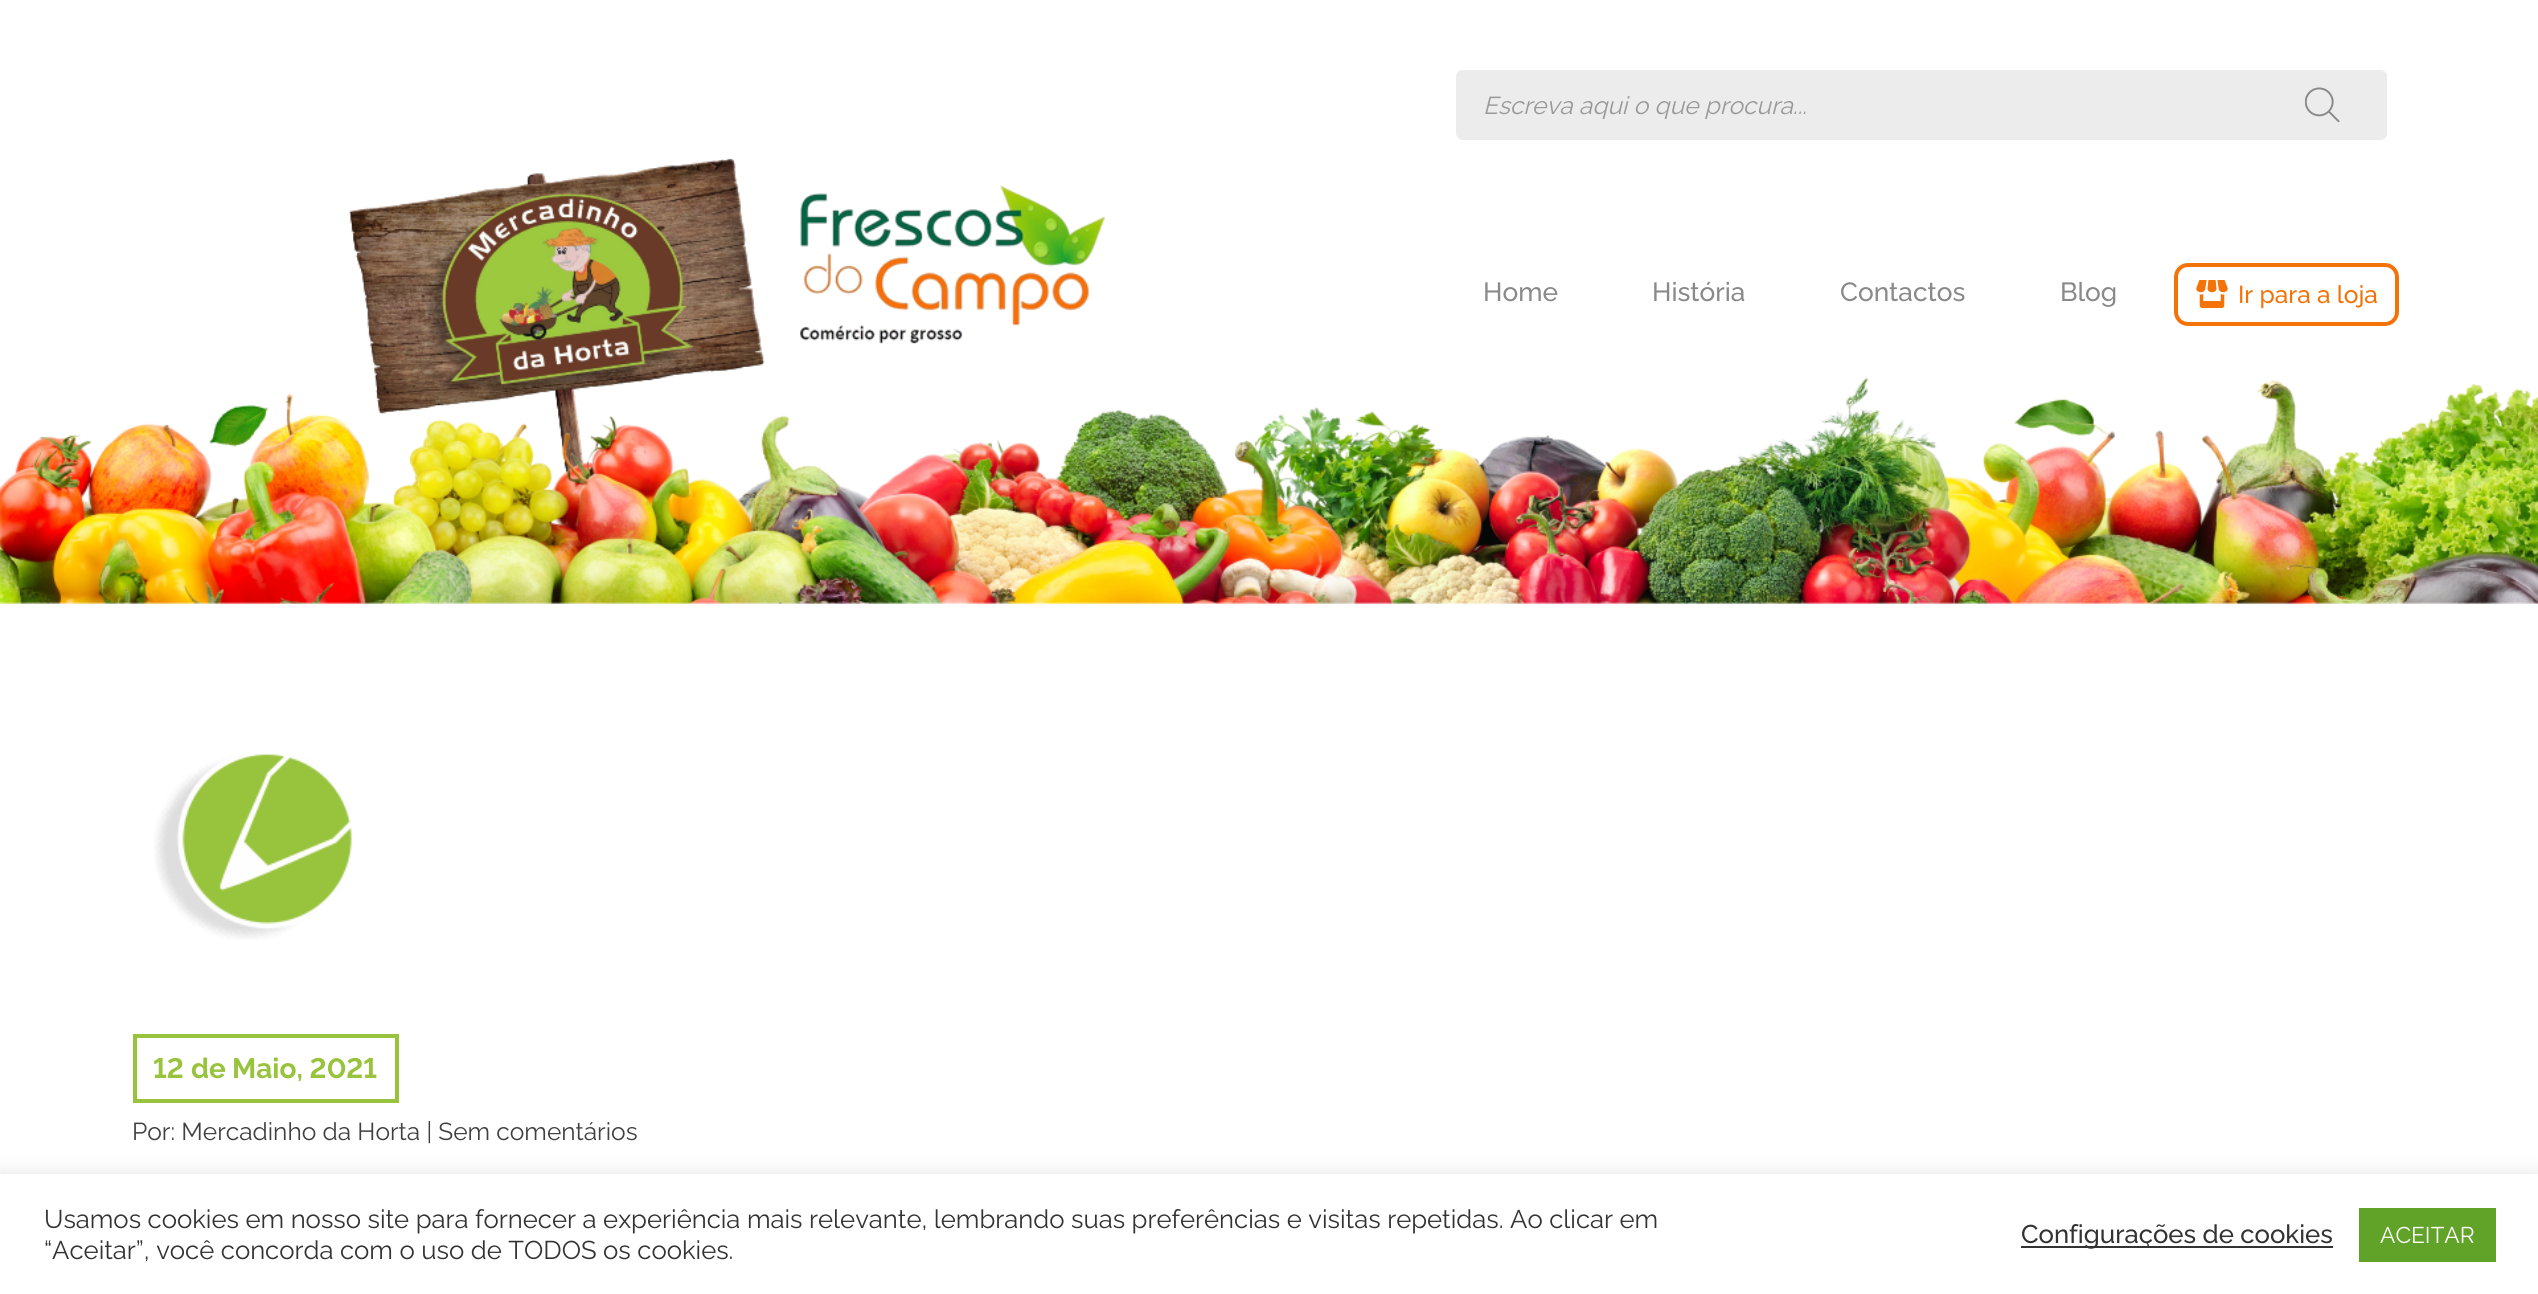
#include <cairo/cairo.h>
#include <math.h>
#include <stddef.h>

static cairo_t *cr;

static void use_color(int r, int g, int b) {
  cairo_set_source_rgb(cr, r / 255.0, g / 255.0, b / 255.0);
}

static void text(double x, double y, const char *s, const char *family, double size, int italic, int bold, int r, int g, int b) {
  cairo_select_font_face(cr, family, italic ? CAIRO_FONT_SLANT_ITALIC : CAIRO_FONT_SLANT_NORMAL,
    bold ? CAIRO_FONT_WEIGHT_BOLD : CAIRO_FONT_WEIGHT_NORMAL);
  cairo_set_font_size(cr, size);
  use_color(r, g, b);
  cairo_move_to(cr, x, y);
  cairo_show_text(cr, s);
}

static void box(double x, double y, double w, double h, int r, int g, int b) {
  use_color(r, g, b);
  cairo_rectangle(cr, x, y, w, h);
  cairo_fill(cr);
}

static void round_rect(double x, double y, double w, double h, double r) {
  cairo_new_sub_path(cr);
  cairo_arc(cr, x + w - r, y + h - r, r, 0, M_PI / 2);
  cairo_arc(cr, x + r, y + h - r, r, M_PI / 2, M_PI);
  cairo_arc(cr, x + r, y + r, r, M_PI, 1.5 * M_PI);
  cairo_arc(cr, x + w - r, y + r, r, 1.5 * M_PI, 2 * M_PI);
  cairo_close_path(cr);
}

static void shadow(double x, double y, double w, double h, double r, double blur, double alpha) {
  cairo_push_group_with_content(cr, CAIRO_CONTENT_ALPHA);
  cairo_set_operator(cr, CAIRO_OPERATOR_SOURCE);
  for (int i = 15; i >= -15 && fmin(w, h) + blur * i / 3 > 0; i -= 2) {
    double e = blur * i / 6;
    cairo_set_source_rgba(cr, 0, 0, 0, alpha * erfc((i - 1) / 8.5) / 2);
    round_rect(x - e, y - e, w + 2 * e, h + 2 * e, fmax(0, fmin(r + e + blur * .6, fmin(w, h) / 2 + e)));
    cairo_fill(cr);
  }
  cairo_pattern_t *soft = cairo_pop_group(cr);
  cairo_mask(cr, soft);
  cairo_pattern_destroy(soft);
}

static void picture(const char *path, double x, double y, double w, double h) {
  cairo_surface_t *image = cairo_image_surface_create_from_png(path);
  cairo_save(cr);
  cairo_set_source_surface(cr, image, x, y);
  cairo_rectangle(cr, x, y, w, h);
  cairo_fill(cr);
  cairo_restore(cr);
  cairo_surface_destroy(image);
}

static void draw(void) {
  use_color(255, 255, 255);
  cairo_paint(cr);
  use_color(236, 236, 236);
  round_rect(1456, 70, 931, 70, 7);
  cairo_fill(cr);
  cairo_new_path(cr);
  cairo_move_to(cr, 2258, 70);
  cairo_line_to(cr, 2380, 70);
  cairo_curve_to(cr, 2384, 70, 2387, 73, 2387, 77);
  cairo_line_to(cr, 2387, 133);
  cairo_curve_to(cr, 2387, 137, 2384, 140, 2380, 140);
  cairo_line_to(cr, 2258, 140);
  cairo_close_path(cr);
  cairo_fill(cr);
  picture("img_01.png", 2305, 87, 35, 36);
  picture("img_03.png", 0, 158, 2538, 446);
  round_rect(2176, 265, 221, 59, 12);
  use_color(244, 115, 9);
  cairo_set_line_width(cr, 4);
  cairo_stroke(cr);
  picture("img_02.png", 2196, 280, 32, 28);
  picture("img_04.png", 154, 754, 198, 186);
  cairo_rectangle(cr, 135, 1036, 262, 65);
  use_color(152, 195, 60);
  cairo_stroke(cr);
  use_color(172, 171, 171);
  shadow(0, 1173, 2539, 120, 0, 9, 0.3);
  box(0, 1174, 2538, 120, 255, 255, 255);
  box(2021, 1246, 312, 2, 51, 51, 51);
  box(2359, 1208, 137, 54, 97, 162, 41);
  cairo_save(cr);
  cairo_rectangle(cr, 1482, 91, 879, 28);
  cairo_clip(cr);
  text(1483, 114, "Escreva aqui o que procura...", "Raleway", 24.5, 1, 0, 153, 153, 153);
  cairo_restore(cr);
  text(1483, 301, "Home", "Raleway Medium", 26.25, 0, 0, 137, 137, 137);
  text(1652, 301, "História", "Raleway Medium", 26.25, 0, 0, 137, 137, 137);
  text(1840, 301, "Contactos", "Raleway Medium", 26.25, 0, 0, 137, 137, 137);
  text(2060, 301, "Blog", "Raleway Medium", 26.25, 0, 0, 137, 137, 137);
  text(2238, 303, "Ir para a loja", "Raleway Medium", 24.5, 0, 0, 244, 115, 9);
  text(153, 1078, "12", "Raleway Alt", 28, 0, 1, 152, 195, 60);
  text(191, 1078, "de", "Raleway", 28, 0, 1, 152, 195, 60);
  text(232, 1078, "Maio, 2021", "Raleway Alt", 28, 0, 1, 152, 195, 60);
  text(132, 1140, "Por: Mercadinho da Horta | Sem comentários", "Raleway", 24.5, 0, 0, 64, 64, 64);
  text(44, 1228, "Usamos cookies em nosso site para fornecer a experiência mais relevante, lembrando suas preferências e visitas repetidas. Ao clicar em", "Raleway", 25.67, 0, 0, 51, 51, 51);
  text(44, 1259, "“Aceitar”, você concorda com o uso de TODOS os cookies.", "Raleway", 25.67, 0, 0, 51, 51, 51);
  text(2021, 1243, "Configurações de cookies", "Raleway Medium", 25.67, 0, 0, 51, 51, 51);
  text(2380, 1243, "ACEITAR", "Raleway", 22.75, 0, 0, 255, 255, 255);
}

int main(void) {
  cairo_surface_t *surface = cairo_image_surface_create(CAIRO_FORMAT_RGB24, 2538, 1294);
  cr = cairo_create(surface);
  cairo_font_options_t *options = cairo_font_options_create();
  cairo_font_options_set_hint_metrics(options, CAIRO_HINT_METRICS_OFF);
  cairo_font_options_set_hint_style(options, CAIRO_HINT_STYLE_NONE);
  cairo_set_font_options(cr, options);
  cairo_set_miter_limit(cr, 4);
  draw();
  cairo_surface_write_to_png(surface, "out.png");
  cairo_font_options_destroy(options);
  cairo_destroy(cr);
  cairo_surface_destroy(surface);
  return 0;
}
